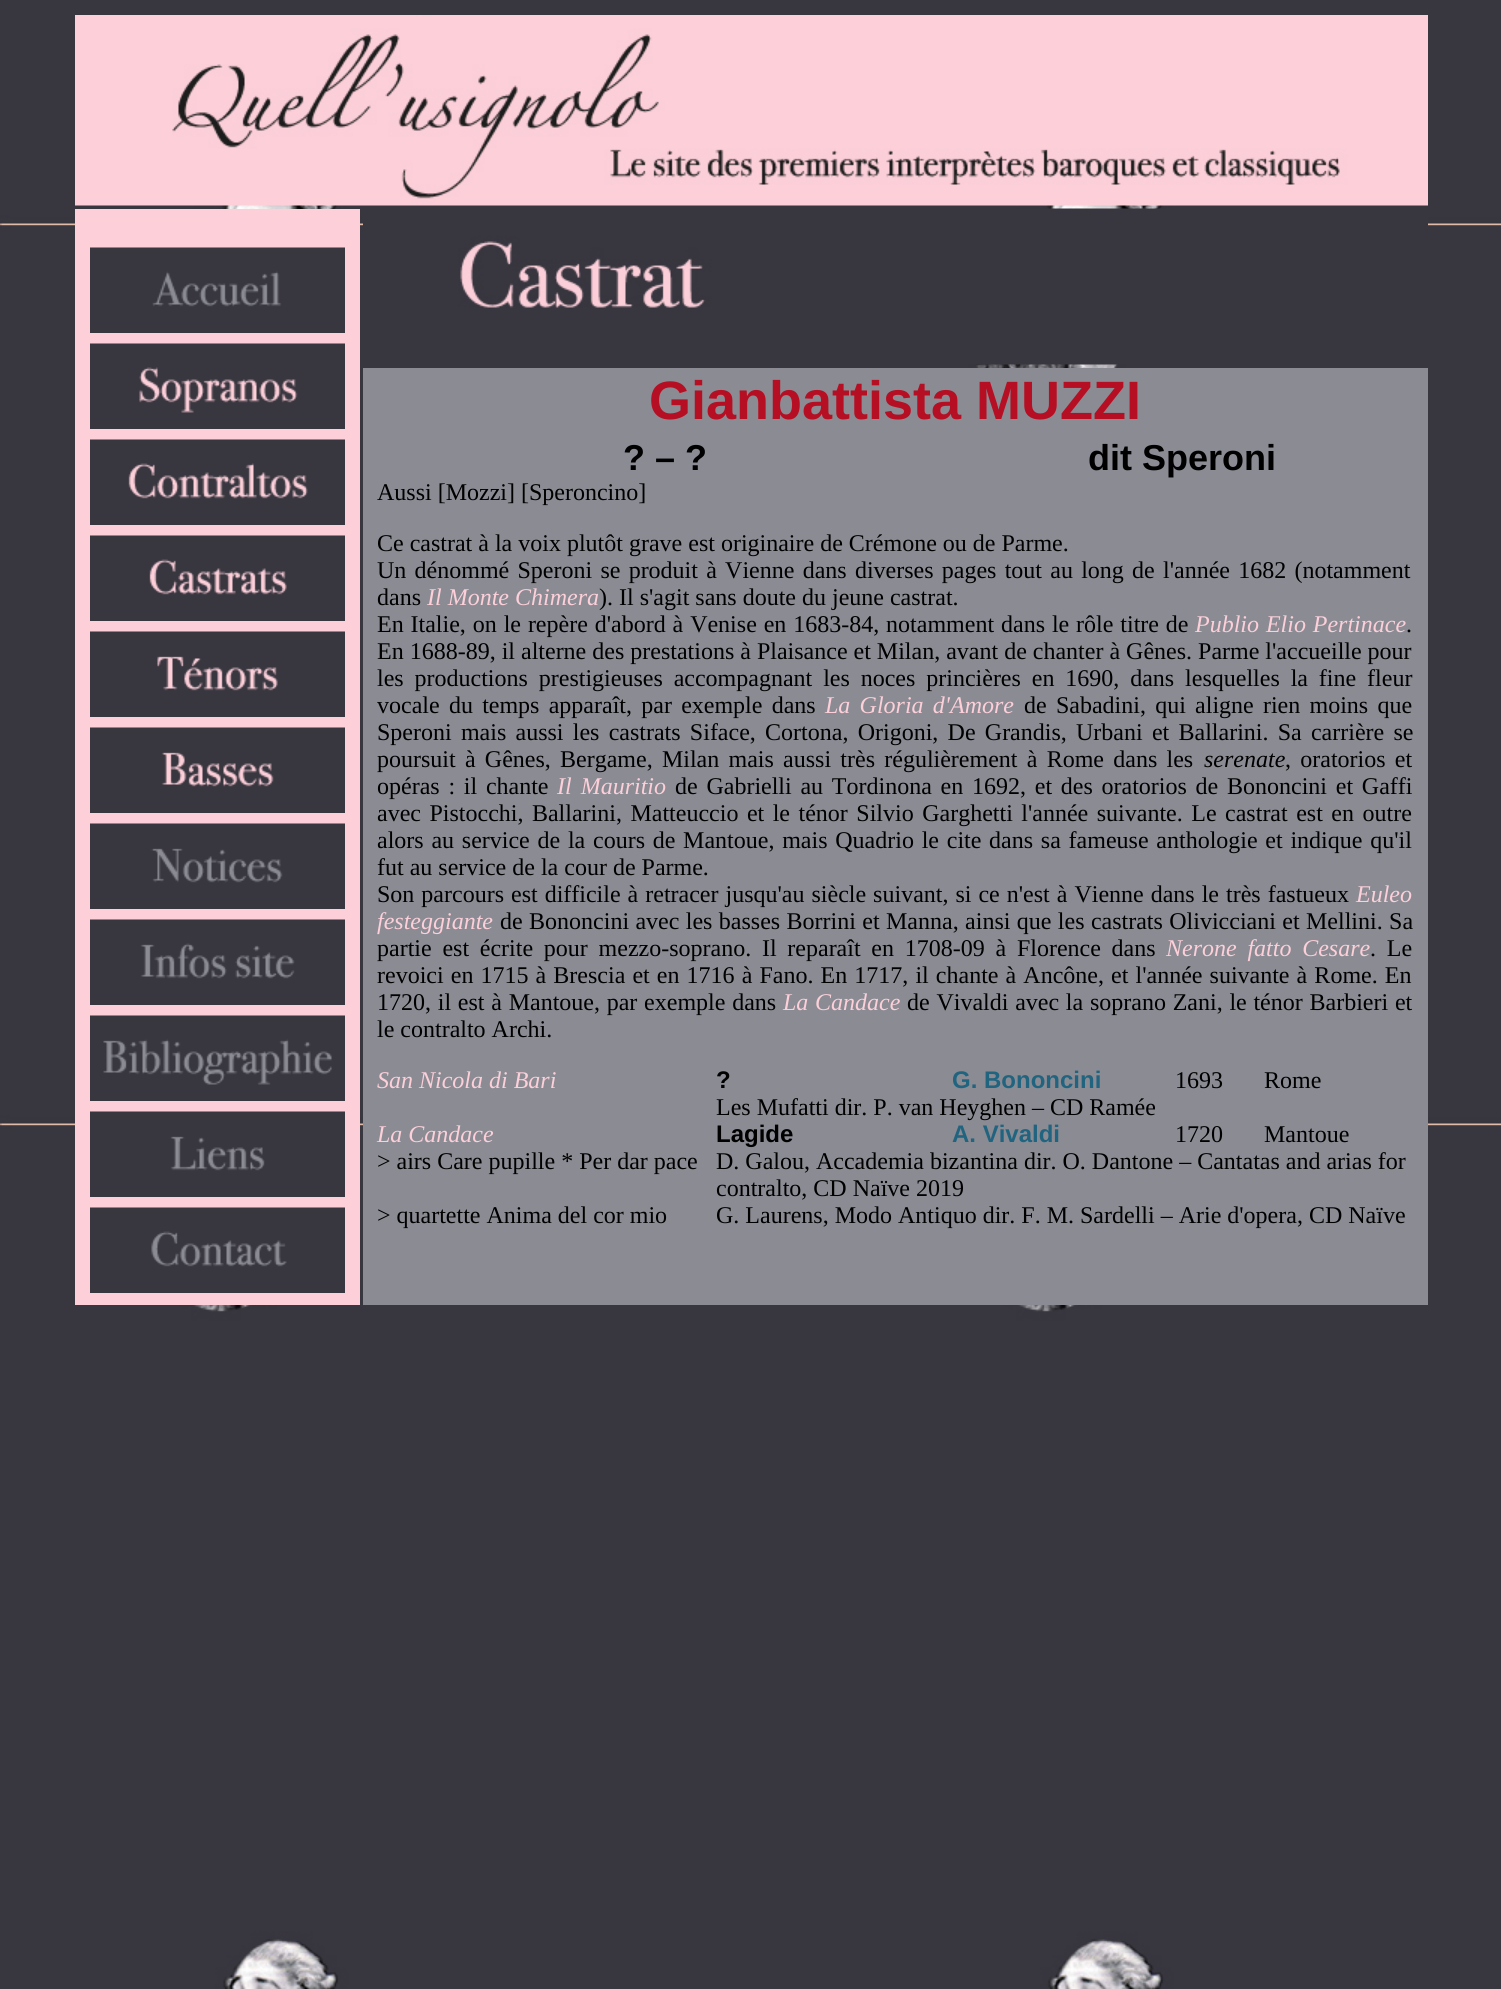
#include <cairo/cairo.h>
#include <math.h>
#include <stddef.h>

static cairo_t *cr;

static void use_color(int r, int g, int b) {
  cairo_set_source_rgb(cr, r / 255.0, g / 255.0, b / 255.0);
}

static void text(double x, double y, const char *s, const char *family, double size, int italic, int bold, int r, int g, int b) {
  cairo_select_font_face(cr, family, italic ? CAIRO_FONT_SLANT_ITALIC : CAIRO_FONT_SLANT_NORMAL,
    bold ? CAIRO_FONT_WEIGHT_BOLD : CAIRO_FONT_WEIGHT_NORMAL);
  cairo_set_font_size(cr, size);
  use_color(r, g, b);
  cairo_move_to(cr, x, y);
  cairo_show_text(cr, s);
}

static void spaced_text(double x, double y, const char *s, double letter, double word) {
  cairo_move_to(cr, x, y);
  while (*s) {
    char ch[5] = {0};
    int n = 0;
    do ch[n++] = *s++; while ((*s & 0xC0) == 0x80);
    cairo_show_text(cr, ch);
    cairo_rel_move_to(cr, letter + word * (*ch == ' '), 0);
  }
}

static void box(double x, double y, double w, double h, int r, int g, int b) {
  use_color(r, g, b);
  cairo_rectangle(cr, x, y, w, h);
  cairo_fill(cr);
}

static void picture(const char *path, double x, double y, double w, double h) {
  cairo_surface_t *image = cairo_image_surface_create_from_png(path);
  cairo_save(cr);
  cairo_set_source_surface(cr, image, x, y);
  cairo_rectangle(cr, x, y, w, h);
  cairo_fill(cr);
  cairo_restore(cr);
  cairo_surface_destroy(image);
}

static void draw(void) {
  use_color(255, 255, 255);
  cairo_paint(cr);
  picture("img_01.png", 0, 0, 1501, 1989);
  picture("img_02.png", 75, 15, 1353, 191);
  picture("img_03.png", 170, 34, 1170, 165);
  box(75, 209, 285, 1096, 252, 207, 217);
  picture("img_04.png", 90, 247, 255, 86);
  picture("img_05.png", 90, 343, 255, 86);
  picture("img_06.png", 90, 439, 255, 86);
  picture("img_07.png", 90, 535, 255, 86);
  picture("img_08.png", 90, 631, 255, 86);
  picture("img_09.png", 90, 727, 255, 86);
  picture("img_10.png", 90, 823, 255, 86);
  picture("img_11.png", 90, 919, 255, 86);
  picture("img_12.png", 90, 1015, 255, 86);
  picture("img_13.png", 90, 1111, 255, 86);
  picture("img_14.png", 90, 1207, 255, 86);
  picture("img_15.png", 363, 208, 1065, 157);
  box(363, 368, 1065, 937, 138, 139, 147);
  text(649, 419, "Gianbattista MUZZI", "Liberation Sans", 54, 0, 1, 182, 14, 34);
  text(623, 470, "? – ?", "Liberation Sans", 36, 0, 1, 0, 0, 0);
  text(1088, 470, "dit Speroni", "Liberation Sans", 36, 0, 1, 0, 0, 0);
  text(377, 500, "Aussi [Mozzi] [Speroncino]", "Liberation Serif", 24, 0, 0, 0, 0, 0);
  text(377, 551, "Ce castrat à la voix plutôt grave est originaire de Crémone ou de Parme.", "Liberation Serif", 24, 0, 0, 0, 0, 0);
  spaced_text(377, 578, "Un dénommé Speroni se produit à Vienne dans diverses pages tout au long de l'année 1682 (notamment", 0, 2.25);
  text(377, 605, "dans", "Liberation Serif", 24, 0, 0, 0, 0, 0);
  text(427, 605, "Il Monte Chimera", "Liberation Serif", 24, 1, 0, 252, 207, 217);
  text(599, 605, "). Il s'agit sans doute du jeune castrat.", "Liberation Serif", 24, 0, 0, 0, 0, 0);
  spaced_text(377, 632, "En Italie, on le repère d'abord à Venise en 1683-84, notamment dans le rôle titre de", 0, 0.9);
  cairo_select_font_face(cr, "Liberation Serif", CAIRO_FONT_SLANT_ITALIC, CAIRO_FONT_WEIGHT_NORMAL);
  use_color(252, 207, 217);
  spaced_text(1195, 632, "Publio Elio Pertinace", 0, 0.9);
  text(1406, 632, ".", "Liberation Serif", 24, 0, 0, 0, 0, 0);
  text(377, 659, "En 1688-89, il alterne des prestations à Plaisance et Milan, avant de chanter à Gênes. Parme l'accueille pour", "Liberation Serif", 24, 0, 0, 0, 0, 0);
  spaced_text(377, 686, "les productions prestigieuses accompagnant les noces princières en 1690, dans lesquelles la fine fleur", 0, 4.9);
  spaced_text(377, 713, "vocale du temps apparaît, par exemple dans", 0, 3.25);
  cairo_select_font_face(cr, "Liberation Serif", CAIRO_FONT_SLANT_ITALIC, CAIRO_FONT_WEIGHT_NORMAL);
  use_color(252, 207, 217);
  spaced_text(825, 713, "La Gloria d'Amore", 0, 3.25);
  cairo_select_font_face(cr, "Liberation Serif", CAIRO_FONT_SLANT_NORMAL, CAIRO_FONT_WEIGHT_NORMAL);
  use_color(0, 0, 0);
  spaced_text(1024, 713, "de Sabadini, qui aligne rien moins que", 0, 3.25);
  spaced_text(377, 740, "Speroni mais aussi les castrats Siface, Cortona, Origoni, De Grandis, Urbani et Ballarini. Sa carrière se", 0, 3.25);
  spaced_text(377, 767, "poursuit à Gênes, Bergame, Milan mais aussi très régulièrement à Rome dans les", 0, 3.25);
  text(1204, 767, "serenate", "Liberation Serif", 24, 1, 0, 0, 0, 0);
  cairo_select_font_face(cr, "Liberation Serif", CAIRO_FONT_SLANT_NORMAL, CAIRO_FONT_WEIGHT_NORMAL);
  spaced_text(1285, 767, ", oratorios et", 0, 3.25);
  spaced_text(377, 794, "opéras : il chante", 0, 2.75);
  cairo_select_font_face(cr, "Liberation Serif", CAIRO_FONT_SLANT_ITALIC, CAIRO_FONT_WEIGHT_NORMAL);
  use_color(252, 207, 217);
  spaced_text(557, 794, "Il Mauritio", 0, 3);
  cairo_select_font_face(cr, "Liberation Serif", CAIRO_FONT_SLANT_NORMAL, CAIRO_FONT_WEIGHT_NORMAL);
  use_color(0, 0, 0);
  spaced_text(675, 794, "de Gabrielli au Tordinona en 1692, et des oratorios de Bononcini et Gaffi", 0, 2.75);
  spaced_text(377, 821, "avec Pistocchi, Ballarini, Matteuccio et le ténor Silvio Garghetti l'année suivante. Le castrat est en outre", 0, 2.5);
  spaced_text(377, 848, "alors au service de la cours de Mantoue, mais Quadrio le cite dans sa fameuse anthologie et indique qu'il", 0, 1.75);
  text(377, 875, "fut au service de la cour de Parme.", "Liberation Serif", 24, 0, 0, 0, 0, 0);
  spaced_text(377, 902, "Son parcours est difficile à retracer jusqu'au siècle suivant, si ce n'est à Vienne dans le très fastueux", 0, 1);
  text(1356, 902, "Euleo", "Liberation Serif", 24, 1, 0, 252, 207, 217);
  text(377, 929, "festeggiante", "Liberation Serif", 24, 1, 0, 252, 207, 217);
  cairo_select_font_face(cr, "Liberation Serif", CAIRO_FONT_SLANT_NORMAL, CAIRO_FONT_WEIGHT_NORMAL);
  use_color(0, 0, 0);
  spaced_text(500, 929, "de Bononcini avec les basses Borrini et Manna, ainsi que les castrats Olivicciani et Mellini. Sa", 0, 0.4);
  spaced_text(377, 956, "partie est écrite pour mezzo-soprano. Il reparaît en 1708-09 à Florence dans", 0, 4.75);
  cairo_select_font_face(cr, "Liberation Serif", CAIRO_FONT_SLANT_ITALIC, CAIRO_FONT_WEIGHT_NORMAL);
  use_color(252, 207, 217);
  spaced_text(1166, 956, "Nerone fatto Cesare", 0, 4.75);
  cairo_select_font_face(cr, "Liberation Serif", CAIRO_FONT_SLANT_NORMAL, CAIRO_FONT_WEIGHT_NORMAL);
  use_color(0, 0, 0);
  spaced_text(1370, 956, ". Le", 0, 4.75);
  spaced_text(377, 983, "revoici en 1715 à Brescia et en 1716 à Fano. En 1717, il chante à Ancône, et l'année suivante à Rome. En", 0, 1.1);
  spaced_text(377, 1010, "1720, il est à Mantoue, par exemple dans", 0, 0.75);
  cairo_select_font_face(cr, "Liberation Serif", CAIRO_FONT_SLANT_ITALIC, CAIRO_FONT_WEIGHT_NORMAL);
  use_color(252, 207, 217);
  spaced_text(783, 1010, "La Candace", 0, 0.75);
  cairo_select_font_face(cr, "Liberation Serif", CAIRO_FONT_SLANT_NORMAL, CAIRO_FONT_WEIGHT_NORMAL);
  use_color(0, 0, 0);
  spaced_text(907, 1010, "de Vivaldi avec la soprano Zani, le ténor Barbieri et", 0, 0.75);
  text(377, 1037, "le contralto Archi.", "Liberation Serif", 24, 0, 0, 0, 0, 0);
  text(377, 1088, "San Nicola di Bari", "Liberation Serif", 24, 1, 0, 252, 207, 217);
  text(716, 1088, "?", "Liberation Sans", 24, 0, 1, 0, 0, 0);
  text(952, 1088, "G. Bononcini", "Liberation Sans", 24, 0, 1, 32, 100, 128);
  text(1175, 1088, "1693", "Liberation Serif", 24, 0, 0, 0, 0, 0);
  text(1264, 1088, "Rome", "Liberation Serif", 24, 0, 0, 0, 0, 0);
  text(716, 1115, "Les Mufatti dir. P. van Heyghen – CD Ramée", "Liberation Serif", 24, 0, 0, 0, 0, 0);
  text(377, 1142, "La Candace", "Liberation Serif", 24, 1, 0, 252, 207, 217);
  text(716, 1142, "Lagide", "Liberation Sans", 24, 0, 1, 0, 0, 0);
  text(952, 1142, "A. Vivaldi", "Liberation Sans", 24, 0, 1, 32, 100, 128);
  text(1175, 1142, "1720", "Liberation Serif", 24, 0, 0, 0, 0, 0);
  text(1264, 1142, "Mantoue", "Liberation Serif", 24, 0, 0, 0, 0, 0);
  text(377, 1169, "> airs Care pupille * Per dar pace", "Liberation Serif", 24, 0, 0, 0, 0, 0);
  text(377, 1223, "> quartette Anima del cor mio", "Liberation Serif", 24, 0, 0, 0, 0, 0);
  text(716, 1169, "D. Galou, Accademia bizantina dir. O. Dantone – Cantatas and arias for", "Liberation Serif", 24, 0, 0, 0, 0, 0);
  text(716, 1196, "contralto, CD Naïve 2019", "Liberation Serif", 24, 0, 0, 0, 0, 0);
  text(716, 1223, "G. Laurens, Modo Antiquo dir. F. M. Sardelli – Arie d'opera, CD Naïve", "Liberation Serif", 24, 0, 0, 0, 0, 0);
}

int main(void) {
  cairo_surface_t *surface = cairo_image_surface_create(CAIRO_FORMAT_RGB24, 1501, 1989);
  cr = cairo_create(surface);
  cairo_font_options_t *options = cairo_font_options_create();
  cairo_font_options_set_hint_metrics(options, CAIRO_HINT_METRICS_OFF);
  cairo_font_options_set_hint_style(options, CAIRO_HINT_STYLE_NONE);
  cairo_set_font_options(cr, options);
  cairo_set_miter_limit(cr, 4);
  draw();
  cairo_surface_write_to_png(surface, "out.png");
  cairo_font_options_destroy(options);
  cairo_destroy(cr);
  cairo_surface_destroy(surface);
  return 0;
}
